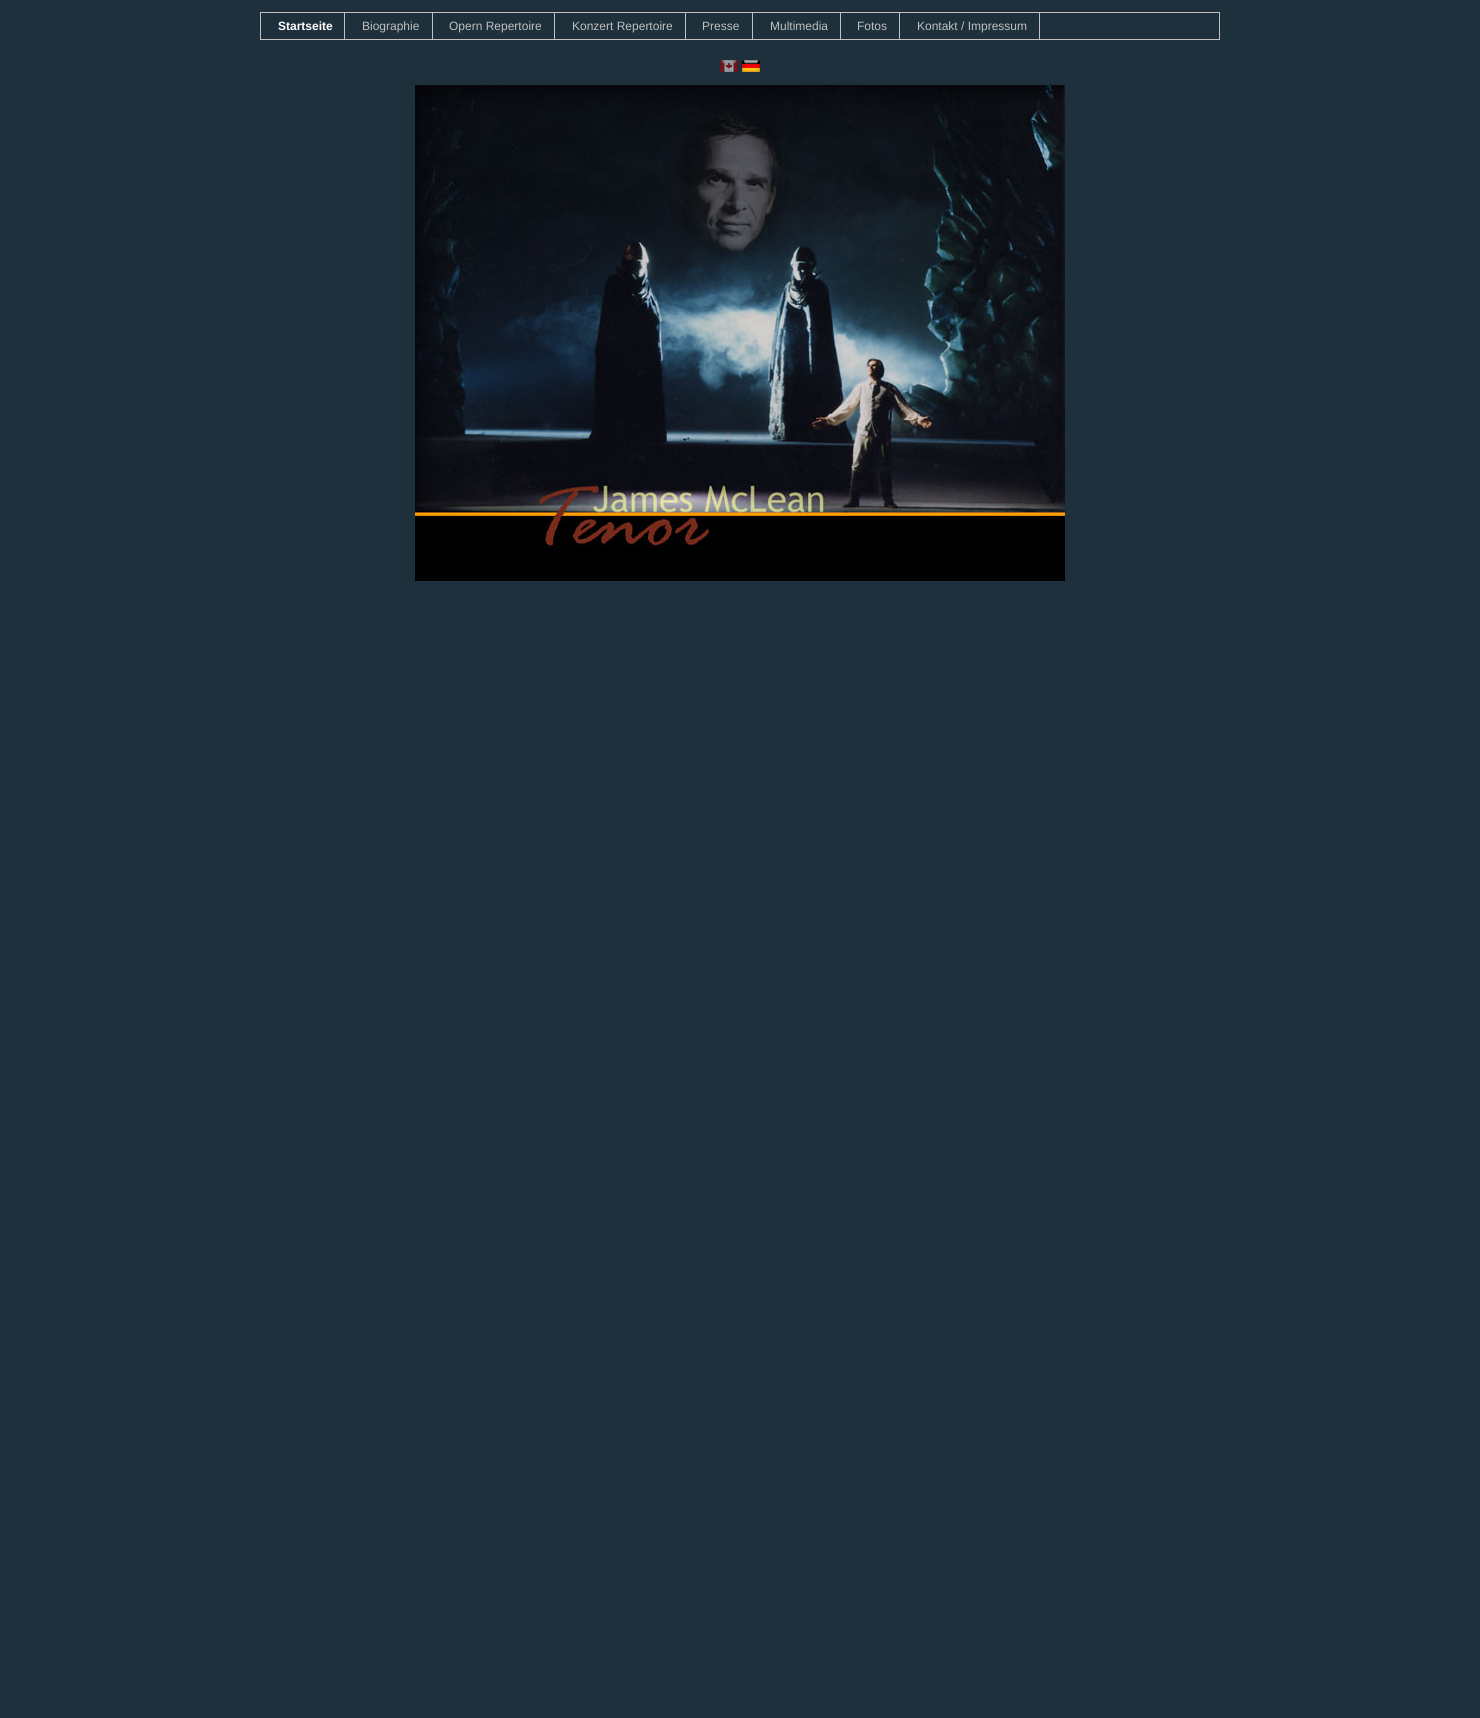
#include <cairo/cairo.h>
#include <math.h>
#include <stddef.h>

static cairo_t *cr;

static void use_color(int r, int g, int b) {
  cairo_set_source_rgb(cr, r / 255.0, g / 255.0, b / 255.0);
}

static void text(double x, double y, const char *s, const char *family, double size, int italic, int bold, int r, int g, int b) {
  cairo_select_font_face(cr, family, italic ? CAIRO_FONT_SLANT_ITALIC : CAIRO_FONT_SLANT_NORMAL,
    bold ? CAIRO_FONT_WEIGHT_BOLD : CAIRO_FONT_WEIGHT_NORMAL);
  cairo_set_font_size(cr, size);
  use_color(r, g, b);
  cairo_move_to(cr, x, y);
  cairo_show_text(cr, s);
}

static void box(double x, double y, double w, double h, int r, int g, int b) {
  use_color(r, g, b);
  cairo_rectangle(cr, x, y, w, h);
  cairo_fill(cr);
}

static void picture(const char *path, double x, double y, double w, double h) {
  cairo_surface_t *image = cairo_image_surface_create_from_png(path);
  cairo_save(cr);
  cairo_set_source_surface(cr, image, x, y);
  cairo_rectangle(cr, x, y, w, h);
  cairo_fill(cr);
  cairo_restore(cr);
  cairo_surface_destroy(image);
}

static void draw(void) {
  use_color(30, 48, 60);
  cairo_paint(cr);
  cairo_rectangle(cr, 260.5, 12.5, 959, 27);
  use_color(192, 192, 192);
  cairo_set_line_width(cr, 1);
  cairo_stroke(cr);
  box(344, 13, 1, 26, 192, 192, 192);
  box(432, 13, 1, 26, 192, 192, 192);
  box(554, 13, 1, 26, 192, 192, 192);
  box(685, 13, 1, 26, 192, 192, 192);
  box(752, 13, 1, 26, 192, 192, 192);
  box(840, 13, 1, 26, 192, 192, 192);
  box(899, 13, 1, 26, 192, 192, 192);
  box(1039, 13, 1, 26, 192, 192, 192);
  picture("img_01.png", 720, 60, 18, 12);
  picture("img_02.png", 742, 60, 18, 12);
  picture("img_03.png", 415, 85, 650, 496);
  text(278, 30, "Startseite", "Liberation Sans", 12, 0, 1, 255, 255, 255);
  text(362, 30, "Biographie", "Liberation Sans", 12, 0, 0, 192, 192, 192);
  text(449, 30, "Opern Repertoire", "Liberation Sans", 12, 0, 0, 192, 192, 192);
  text(572, 30, "Konzert Repertoire", "Liberation Sans", 12, 0, 0, 192, 192, 192);
  text(702, 30, "Presse", "Liberation Sans", 12, 0, 0, 192, 192, 192);
  text(770, 30, "Multimedia", "Liberation Sans", 12, 0, 0, 192, 192, 192);
  text(857, 30, "Fotos", "Liberation Sans", 12, 0, 0, 192, 192, 192);
  text(917, 30, "Kontakt / Impressum", "Liberation Sans", 12, 0, 0, 192, 192, 192);
}

int main(void) {
  cairo_surface_t *surface = cairo_image_surface_create(CAIRO_FORMAT_RGB24, 1480, 1718);
  cr = cairo_create(surface);
  cairo_font_options_t *options = cairo_font_options_create();
  cairo_font_options_set_hint_metrics(options, CAIRO_HINT_METRICS_OFF);
  cairo_font_options_set_hint_style(options, CAIRO_HINT_STYLE_NONE);
  cairo_set_font_options(cr, options);
  cairo_set_miter_limit(cr, 4);
  draw();
  cairo_surface_write_to_png(surface, "out.png");
  cairo_font_options_destroy(options);
  cairo_destroy(cr);
  cairo_surface_destroy(surface);
  return 0;
}
